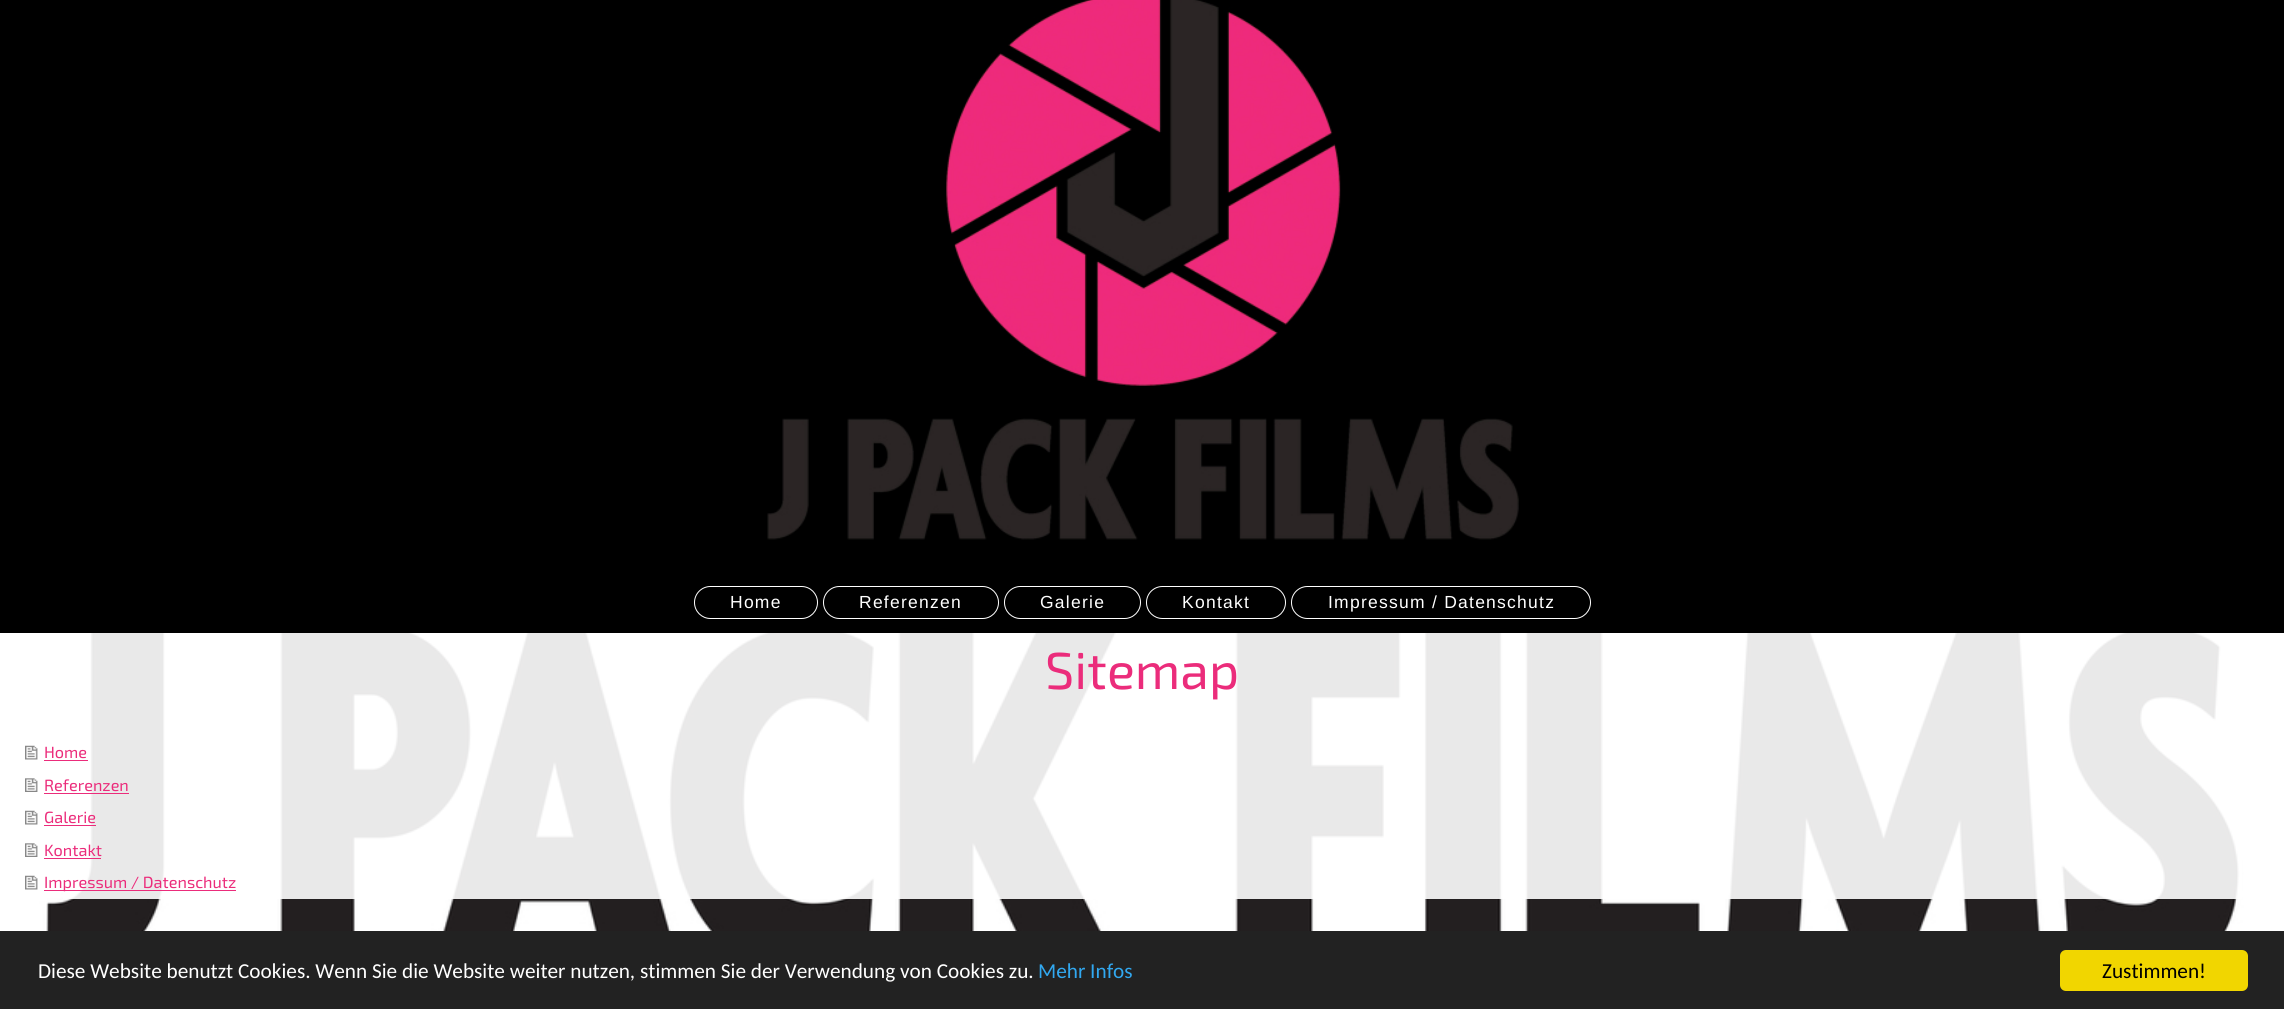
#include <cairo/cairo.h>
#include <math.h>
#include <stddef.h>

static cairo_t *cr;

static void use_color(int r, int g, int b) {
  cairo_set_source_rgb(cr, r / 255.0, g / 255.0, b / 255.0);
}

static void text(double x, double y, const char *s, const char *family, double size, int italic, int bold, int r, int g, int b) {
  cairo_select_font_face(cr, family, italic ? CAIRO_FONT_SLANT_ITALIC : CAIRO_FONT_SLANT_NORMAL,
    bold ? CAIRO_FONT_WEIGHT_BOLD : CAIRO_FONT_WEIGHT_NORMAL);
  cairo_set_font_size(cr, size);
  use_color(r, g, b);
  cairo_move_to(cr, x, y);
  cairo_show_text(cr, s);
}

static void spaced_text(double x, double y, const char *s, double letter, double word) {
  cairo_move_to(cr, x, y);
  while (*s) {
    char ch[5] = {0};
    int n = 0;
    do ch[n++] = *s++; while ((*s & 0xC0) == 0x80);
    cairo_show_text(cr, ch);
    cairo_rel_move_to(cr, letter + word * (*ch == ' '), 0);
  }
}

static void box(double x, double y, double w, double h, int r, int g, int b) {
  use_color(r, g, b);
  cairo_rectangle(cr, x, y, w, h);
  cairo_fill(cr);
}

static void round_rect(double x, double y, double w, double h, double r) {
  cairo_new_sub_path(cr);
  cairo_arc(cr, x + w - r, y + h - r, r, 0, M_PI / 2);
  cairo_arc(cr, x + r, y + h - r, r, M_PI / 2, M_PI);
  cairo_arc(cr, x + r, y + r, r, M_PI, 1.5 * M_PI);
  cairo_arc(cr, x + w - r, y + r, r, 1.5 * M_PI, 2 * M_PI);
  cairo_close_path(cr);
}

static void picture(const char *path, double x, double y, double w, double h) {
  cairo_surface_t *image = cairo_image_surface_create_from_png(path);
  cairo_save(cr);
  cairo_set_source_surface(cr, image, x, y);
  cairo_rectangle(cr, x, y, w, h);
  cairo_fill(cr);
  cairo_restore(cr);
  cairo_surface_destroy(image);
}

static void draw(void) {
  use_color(255, 255, 255);
  cairo_paint(cr);
  picture("img_01.png", 0, 633, 2284, 298);
  box(0, 0, 2284, 633, 0, 0, 0);
  picture("img_02.png", 767, 0, 752, 540);
  round_rect(694.5, 586.5, 123, 32, 16);
  use_color(255, 255, 255);
  cairo_set_line_width(cr, 1);
  cairo_stroke(cr);
  round_rect(823.5, 586.5, 175, 32, 16);
  cairo_stroke(cr);
  round_rect(1004.5, 586.5, 136, 32, 16);
  cairo_stroke(cr);
  round_rect(1146.5, 586.5, 139, 32, 16);
  cairo_stroke(cr);
  round_rect(1291.5, 586.5, 299, 32, 16);
  cairo_stroke(cr);
  cairo_set_source_rgba(cr, 1, 1, 1, 0.9);
  cairo_rectangle(cr, 63, 633, 2179, 266);
  cairo_fill(cr);
  picture("img_03.png", 25, 745, 13, 15);
  box(44, 760, 44, 1, 235, 44, 123);
  picture("img_04.png", 25, 778, 13, 14);
  box(44, 793, 85, 1, 235, 44, 123);
  picture("img_03.png", 25, 810, 13, 15);
  box(44, 825, 52, 1, 235, 44, 123);
  picture("img_04.png", 25, 843, 13, 14);
  box(44, 858, 57, 1, 235, 44, 123);
  picture("img_03.png", 25, 875, 13, 15);
  box(44, 890, 192, 1, 235, 44, 123);
  box(0, 931, 2284, 78, 34, 34, 34);
  use_color(241, 214, 0);
  round_rect(2060, 950, 188, 41, 6);
  cairo_fill(cr);
  cairo_select_font_face(cr, "Liberation Sans", CAIRO_FONT_SLANT_NORMAL, CAIRO_FONT_WEIGHT_NORMAL);
  cairo_set_font_size(cr, 17.5);
  use_color(255, 255, 255);
  spaced_text(730, 608, "Home", 1.25, 0);
  spaced_text(859, 608, "Referenzen", 1.25, 0);
  spaced_text(1040, 608, "Galerie", 1.25, 0);
  spaced_text(1182, 608, "Kontakt", 1.25, 0);
  spaced_text(1328, 608, "Impressum / Datenschutz", 1.25, 0);
  text(1045, 689, "Sitemap", "Exo 2", 52, 0, 0, 235, 44, 123);
  text(44, 758, "Home", "Exo 2", 16.25, 0, 0, 235, 44, 123);
  text(44, 791, "Referenzen", "Exo 2", 16.25, 0, 0, 235, 44, 123);
  text(44, 823, "Galerie", "Exo 2", 16.25, 0, 0, 235, 44, 123);
  text(44, 856, "Kontakt", "Exo 2", 16.25, 0, 0, 235, 44, 123);
  text(44, 888, "Impressum / Datenschutz", "Exo 2", 16.25, 0, 0, 235, 44, 123);
  text(38, 978, "Diese Website benutzt Cookies. Wenn Sie die Website weiter nutzen, stimmen Sie der Verwendung von Cookies zu.", "Carlito", 21.25, 0, 0, 255, 255, 255);
  text(1038, 978, "Mehr Infos", "Carlito", 21.25, 0, 0, 49, 168, 240);
  text(2102, 978, "Zustimmen!", "Carlito", 21.25, 0, 0, 0, 0, 0);
}

int main(void) {
  cairo_surface_t *surface = cairo_image_surface_create(CAIRO_FORMAT_RGB24, 2284, 1009);
  cr = cairo_create(surface);
  cairo_font_options_t *options = cairo_font_options_create();
  cairo_font_options_set_hint_metrics(options, CAIRO_HINT_METRICS_OFF);
  cairo_font_options_set_hint_style(options, CAIRO_HINT_STYLE_NONE);
  cairo_set_font_options(cr, options);
  cairo_set_miter_limit(cr, 4);
  draw();
  cairo_surface_write_to_png(surface, "out.png");
  cairo_font_options_destroy(options);
  cairo_destroy(cr);
  cairo_surface_destroy(surface);
  return 0;
}
